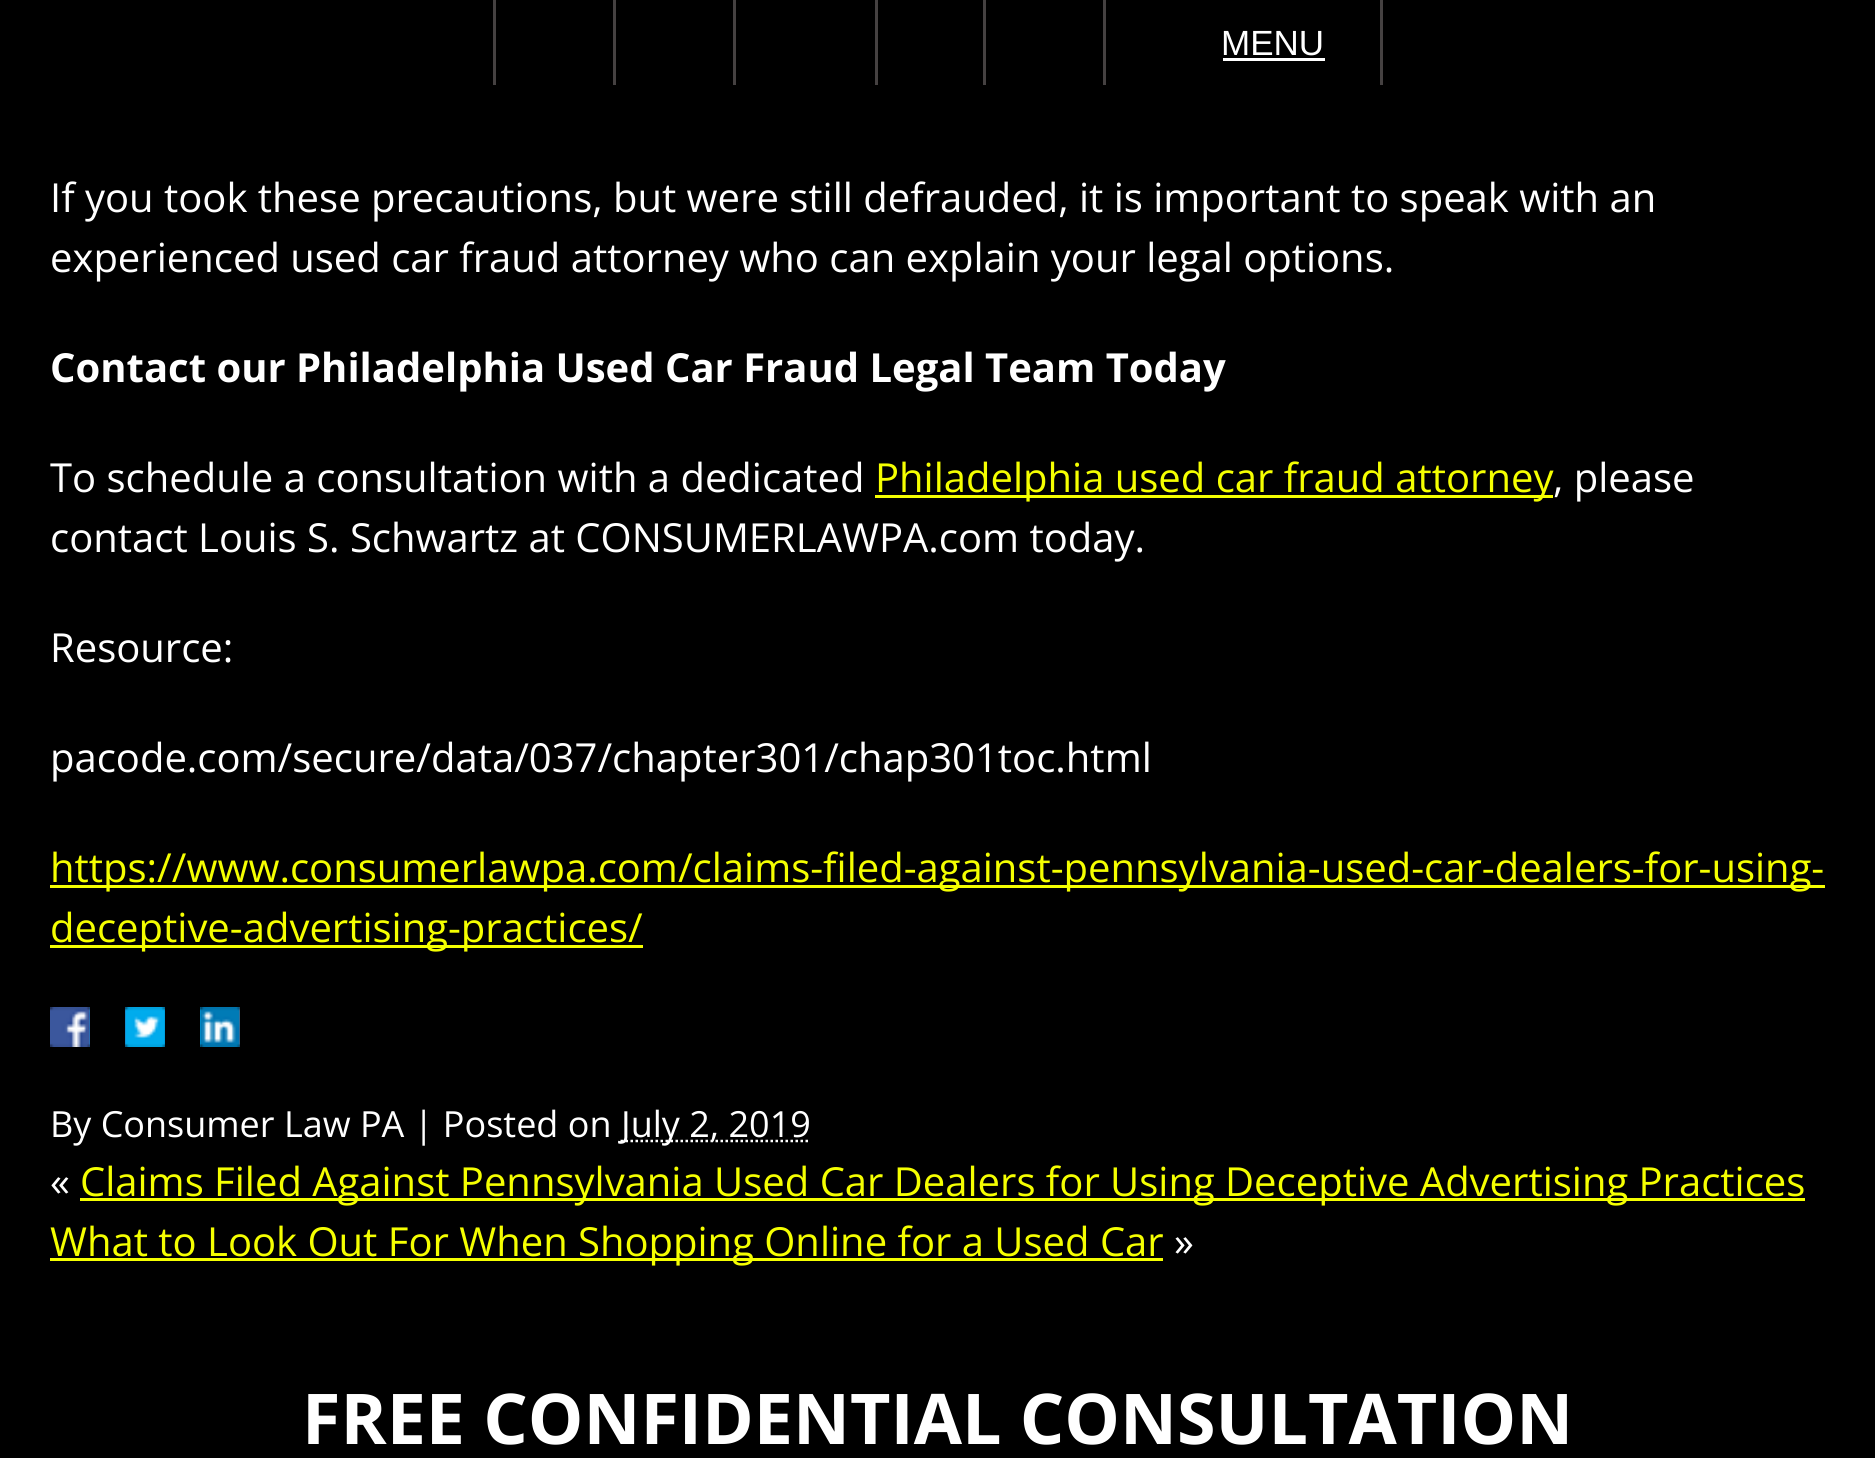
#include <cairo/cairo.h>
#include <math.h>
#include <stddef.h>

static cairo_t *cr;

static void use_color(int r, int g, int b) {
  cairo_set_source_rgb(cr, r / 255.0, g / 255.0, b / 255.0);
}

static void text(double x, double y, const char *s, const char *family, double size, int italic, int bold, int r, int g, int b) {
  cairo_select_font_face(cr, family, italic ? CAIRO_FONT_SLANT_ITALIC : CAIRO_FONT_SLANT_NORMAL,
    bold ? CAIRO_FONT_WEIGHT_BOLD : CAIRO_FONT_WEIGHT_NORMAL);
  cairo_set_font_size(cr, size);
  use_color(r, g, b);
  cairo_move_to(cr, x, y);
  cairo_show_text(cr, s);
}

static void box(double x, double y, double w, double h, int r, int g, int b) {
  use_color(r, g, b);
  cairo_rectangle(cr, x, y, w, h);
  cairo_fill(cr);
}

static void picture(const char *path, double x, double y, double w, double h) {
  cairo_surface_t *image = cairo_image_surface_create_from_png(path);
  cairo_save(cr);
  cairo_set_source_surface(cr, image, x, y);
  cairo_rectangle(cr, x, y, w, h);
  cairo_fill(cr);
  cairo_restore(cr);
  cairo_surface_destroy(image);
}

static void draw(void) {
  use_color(0, 0, 0);
  cairo_paint(cr);
  box(613, 0, 3, 85, 69, 65, 65);
  box(493, 0, 3, 85, 69, 65, 65);
  box(733, 0, 3, 85, 69, 65, 65);
  box(875, 0, 3, 85, 69, 65, 65);
  box(983, 0, 3, 85, 69, 65, 65);
  box(1103, 0, 3, 85, 69, 65, 65);
  box(1380, 0, 3, 85, 69, 65, 65);
  box(1223, 58, 102, 3, 255, 255, 255);
  box(875, 495, 678, 3, 245, 255, 0);
  box(50, 885, 1775, 3, 245, 255, 0);
  box(50, 945, 593, 3, 245, 255, 0);
  picture("img_01.png", 50, 1007, 40, 40);
  picture("img_02.png", 125, 1007, 40, 40);
  picture("img_03.png", 200, 1007, 40, 40);
  cairo_new_path(cr);
  cairo_move_to(cr, 620.5, 1141);
  cairo_line_to(cr, 810.5, 1141);
  use_color(255, 255, 255);
  cairo_set_line_width(cr, 2.5);
  cairo_set_dash(cr, (double[]){2.5, 2.5}, 2, 0);
  cairo_stroke(cr);
  box(80, 1198, 1725, 3, 245, 255, 0);
  box(50, 1258, 1113, 3, 245, 255, 0);
  text(1221, 55, "MENU", "Liberation Sans", 35, 0, 0, 255, 255, 255);
  text(50, 212, "If you took these precautions, but were still defrauded, it is important to speak with an", "Open Sans", 40, 0, 0, 255, 255, 255);
  text(50, 272, "experienced used car fraud attorney who can explain your legal options.", "Open Sans", 40, 0, 0, 255, 255, 255);
  text(50, 382, "Contact our Philadelphia Used Car Fraud Legal Team Today", "Open Sans", 40, 0, 1, 255, 255, 255);
  text(50, 492, "To schedule a consultation with a dedicated", "Open Sans", 40, 0, 0, 255, 255, 255);
  text(875, 492, "Philadelphia used car fraud attorney", "Open Sans", 40, 0, 0, 245, 255, 0);
  text(1553, 492, ", please", "Open Sans", 40, 0, 0, 255, 255, 255);
  text(50, 552, "contact Louis S. Schwartz at CONSUMERLAWPA.com today.", "Open Sans", 40, 0, 0, 255, 255, 255);
  text(50, 662, "Resource:", "Open Sans", 40, 0, 0, 255, 255, 255);
  text(50, 772, "pacode.com/secure/data/037/chapter301/chap301toc.html", "Open Sans", 40, 0, 0, 255, 255, 255);
  text(50, 882, "https://www.consumerlawpa.com/claims-filed-against-pennsylvania-used-car-dealers-for-using-", "Open Sans", 40, 0, 0, 245, 255, 0);
  text(50, 942, "deceptive-advertising-practices/", "Open Sans", 40, 0, 0, 245, 255, 0);
  text(50, 1137, "By Consumer Law PA | Posted on", "Open Sans", 36, 0, 0, 255, 255, 255);
  text(621, 1137, "July 2, 2019", "Open Sans", 36, 0, 0, 255, 255, 255);
  text(50, 1196, "«", "Open Sans", 40, 0, 0, 255, 255, 255);
  text(80, 1196, "Claims Filed Against Pennsylvania Used Car Dealers for Using Deceptive Advertising Practices", "Open Sans", 40, 0, 0, 245, 255, 0);
  text(50, 1256, "What to Look Out For When Shopping Online for a Used Car", "Open Sans", 40, 0, 0, 245, 255, 0);
  text(1174, 1256, "»", "Open Sans", 40, 0, 0, 255, 255, 255);
  text(302, 1444, "FREE CONFIDENTIAL CONSULTATION", "Open Sans", 70, 0, 1, 255, 255, 255);
}

int main(void) {
  cairo_surface_t *surface = cairo_image_surface_create(CAIRO_FORMAT_RGB24, 1875, 1458);
  cr = cairo_create(surface);
  cairo_font_options_t *options = cairo_font_options_create();
  cairo_font_options_set_hint_metrics(options, CAIRO_HINT_METRICS_OFF);
  cairo_font_options_set_hint_style(options, CAIRO_HINT_STYLE_NONE);
  cairo_set_font_options(cr, options);
  cairo_set_miter_limit(cr, 4);
  draw();
  cairo_surface_write_to_png(surface, "out.png");
  cairo_font_options_destroy(options);
  cairo_destroy(cr);
  cairo_surface_destroy(surface);
  return 0;
}
